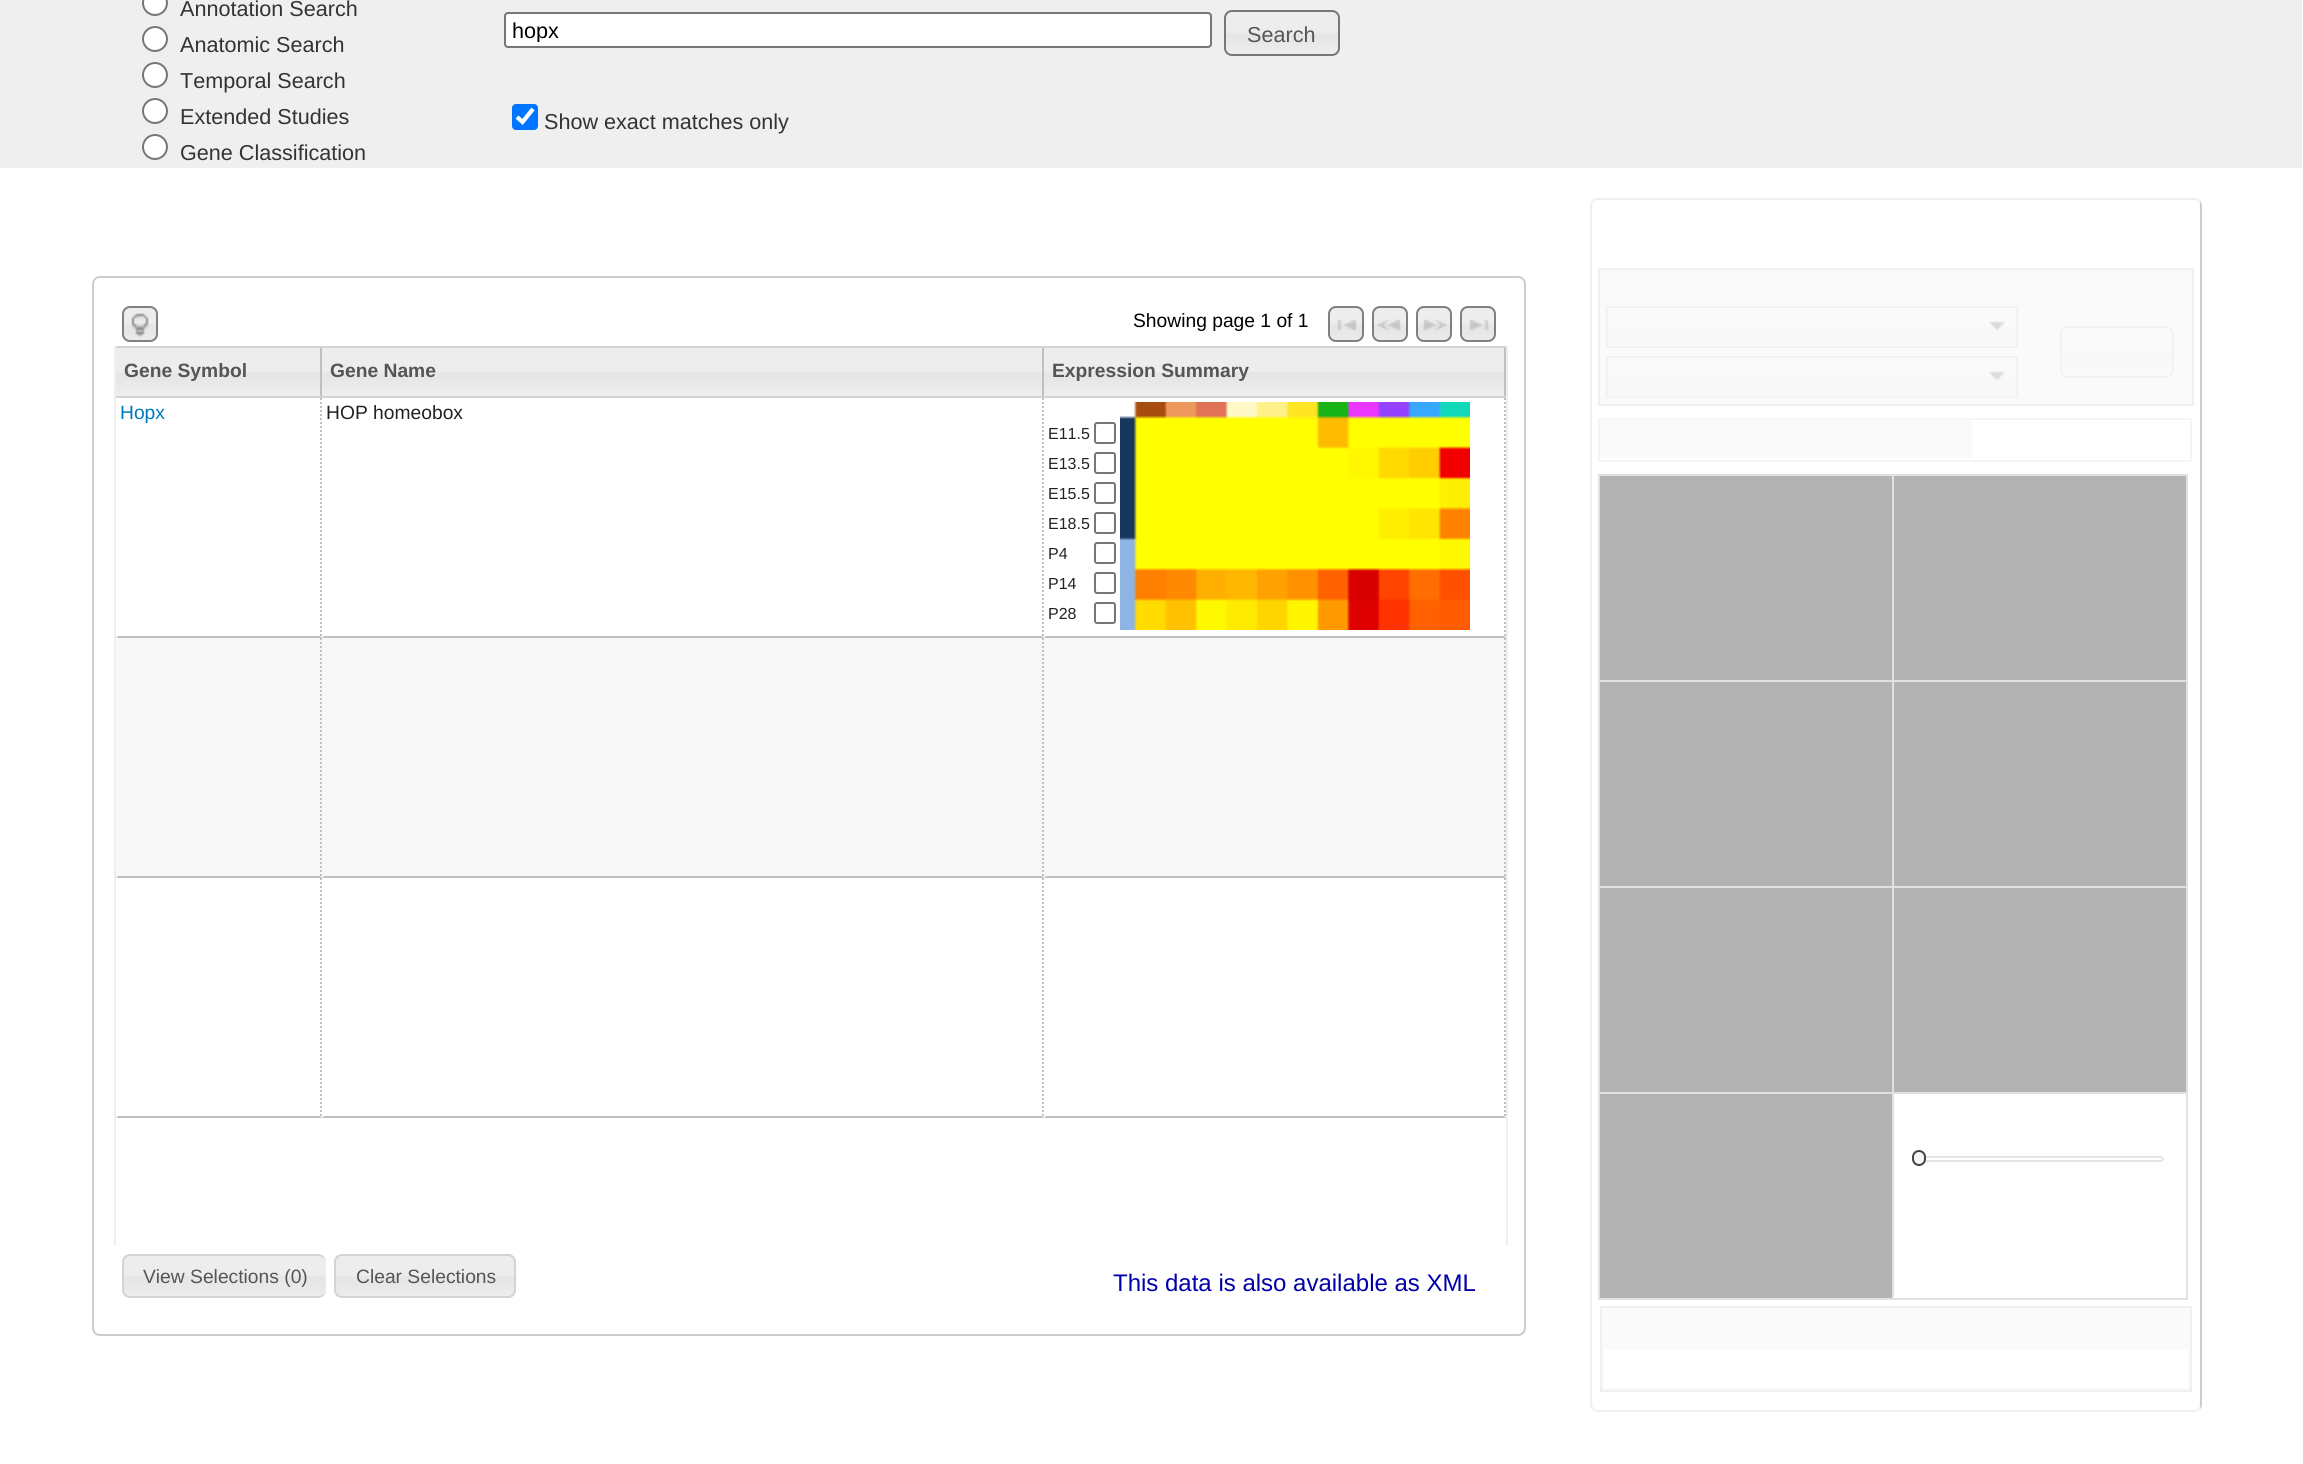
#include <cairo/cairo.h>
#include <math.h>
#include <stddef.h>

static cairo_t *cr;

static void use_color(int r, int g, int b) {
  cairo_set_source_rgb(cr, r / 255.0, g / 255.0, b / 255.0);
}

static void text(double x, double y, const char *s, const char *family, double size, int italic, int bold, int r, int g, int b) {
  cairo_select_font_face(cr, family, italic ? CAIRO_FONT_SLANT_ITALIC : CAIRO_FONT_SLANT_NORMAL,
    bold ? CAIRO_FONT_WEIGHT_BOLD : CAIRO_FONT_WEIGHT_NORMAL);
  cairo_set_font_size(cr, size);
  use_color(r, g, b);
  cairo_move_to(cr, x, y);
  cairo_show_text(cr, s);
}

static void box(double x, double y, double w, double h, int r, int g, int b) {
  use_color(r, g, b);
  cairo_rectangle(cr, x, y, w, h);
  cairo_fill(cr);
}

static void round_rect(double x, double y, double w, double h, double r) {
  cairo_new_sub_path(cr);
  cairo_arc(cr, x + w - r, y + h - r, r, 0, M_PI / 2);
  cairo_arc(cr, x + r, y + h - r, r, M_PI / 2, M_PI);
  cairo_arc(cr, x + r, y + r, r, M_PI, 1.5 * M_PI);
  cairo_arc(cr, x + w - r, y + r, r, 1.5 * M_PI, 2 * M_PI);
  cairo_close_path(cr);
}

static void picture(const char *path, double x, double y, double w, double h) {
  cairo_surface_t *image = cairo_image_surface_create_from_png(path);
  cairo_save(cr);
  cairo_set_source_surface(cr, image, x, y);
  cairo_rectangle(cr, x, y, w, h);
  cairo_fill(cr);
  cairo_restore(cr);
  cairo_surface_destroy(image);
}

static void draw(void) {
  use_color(255, 255, 255);
  cairo_paint(cr);
  box(0, 0, 2302, 168, 239, 239, 239);
  use_color(255, 255, 255);
  cairo_arc(cr, 155, 3, 12, 0, 2 * M_PI);
  cairo_fill_preserve(cr);
  use_color(118, 118, 118);
  cairo_stroke(cr);
  use_color(255, 255, 255);
  cairo_arc(cr, 155, 39, 12, 0, 2 * M_PI);
  cairo_fill_preserve(cr);
  use_color(118, 118, 118);
  cairo_stroke(cr);
  use_color(255, 255, 255);
  cairo_arc(cr, 155, 75, 12, 0, 2 * M_PI);
  cairo_fill_preserve(cr);
  use_color(118, 118, 118);
  cairo_stroke(cr);
  use_color(255, 255, 255);
  cairo_arc(cr, 155, 111, 12, 0, 2 * M_PI);
  cairo_fill_preserve(cr);
  use_color(118, 118, 118);
  cairo_stroke(cr);
  use_color(255, 255, 255);
  cairo_arc(cr, 155, 147, 12, 0, 2 * M_PI);
  cairo_fill_preserve(cr);
  use_color(118, 118, 118);
  cairo_stroke(cr);
  use_color(255, 255, 255);
  round_rect(505, 13, 706, 34, 3);
  cairo_fill_preserve(cr);
  use_color(118, 118, 118);
  cairo_stroke(cr);
  picture("img_01.png", 1224, 10, 116, 46);
  round_rect(1225, 11, 114, 44, 7);
  use_color(119, 119, 119);
  cairo_stroke(cr);
  use_color(0, 117, 255);
  round_rect(512, 104, 26, 26, 4);
  cairo_fill(cr);
  cairo_new_path(cr);
  cairo_move_to(cr, 517, 117);
  cairo_line_to(cr, 522.5, 122);
  cairo_line_to(cr, 533, 109);
  use_color(255, 255, 255);
  cairo_set_line_width(cr, 4.2);
  cairo_stroke(cr);
  round_rect(93, 277, 1432, 1058, 7);
  use_color(204, 204, 204);
  cairo_set_line_width(cr, 2);
  cairo_stroke(cr);
  picture("img_02.png", 122, 306, 36, 36);
  round_rect(123, 307, 34, 34, 7);
  use_color(128, 128, 128);
  cairo_stroke(cr);
  picture("img_03.png", 131, 313, 18, 24);
  picture("img_02.png", 1328, 306, 36, 36);
  round_rect(1329, 307, 34, 34, 7);
  cairo_stroke(cr);
  picture("img_04.png", 1337, 319, 20, 12);
  picture("img_02.png", 1372, 306, 36, 36);
  round_rect(1373, 307, 34, 34, 7);
  cairo_stroke(cr);
  picture("img_05.png", 1377, 319, 24, 12);
  picture("img_02.png", 1416, 306, 36, 36);
  round_rect(1417, 307, 34, 34, 7);
  cairo_stroke(cr);
  picture("img_06.png", 1423, 319, 24, 12);
  picture("img_07.png", 1460, 306, 36, 36);
  round_rect(1461, 307, 34, 34, 7);
  cairo_stroke(cr);
  picture("img_08.png", 1469, 319, 20, 12);
  box(1506, 346, 2, 900, 239, 239, 239);
  box(114, 346, 2, 900, 239, 239, 239);
  box(116, 346, 1390, 2, 211, 211, 211);
  box(116, 396, 1390, 2, 211, 211, 211);
  picture("img_09.png", 116, 348, 204, 48);
  box(320, 348, 2, 48, 192, 192, 192);
  picture("img_10.png", 322, 348, 720, 48);
  box(1042, 348, 2, 48, 192, 192, 192);
  picture("img_11.png", 1044, 348, 460, 48);
  box(1504, 348, 2, 48, 192, 192, 192);
  cairo_new_path(cr);
  cairo_move_to(cr, 321, 398);
  cairo_line_to(cr, 321, 638);
  cairo_set_dash(cr, (double[]){2, 2}, 2, 0);
  cairo_stroke(cr);
  cairo_new_path(cr);
  cairo_move_to(cr, 322, 638);
  cairo_line_to(cr, 116, 638);
  cairo_line_to(cr, 118, 636);
  cairo_line_to(cr, 320, 636);
  cairo_close_path(cr);
  cairo_fill(cr);
  cairo_new_path(cr);
  cairo_move_to(cr, 1043, 398);
  cairo_line_to(cr, 1043, 638);
  cairo_stroke(cr);
  cairo_new_path(cr);
  cairo_move_to(cr, 1044, 638);
  cairo_line_to(cr, 322, 638);
  cairo_line_to(cr, 324, 636);
  cairo_line_to(cr, 1042, 636);
  cairo_close_path(cr);
  cairo_fill(cr);
  cairo_new_path(cr);
  cairo_move_to(cr, 1505, 398);
  cairo_line_to(cr, 1505, 638);
  cairo_stroke(cr);
  cairo_new_path(cr);
  cairo_move_to(cr, 1506, 638);
  cairo_line_to(cr, 1044, 638);
  cairo_line_to(cr, 1046, 636);
  cairo_line_to(cr, 1504, 636);
  cairo_close_path(cr);
  cairo_fill(cr);
  round_rect(1095, 423, 20, 20, 2);
  use_color(118, 118, 118);
  cairo_set_dash(cr, NULL, 0, 0);
  cairo_stroke(cr);
  round_rect(1095, 453, 20, 20, 2);
  cairo_stroke(cr);
  round_rect(1095, 483, 20, 20, 2);
  cairo_stroke(cr);
  round_rect(1095, 513, 20, 20, 2);
  cairo_stroke(cr);
  round_rect(1095, 543, 20, 20, 2);
  cairo_stroke(cr);
  round_rect(1095, 573, 20, 20, 2);
  cairo_stroke(cr);
  round_rect(1095, 603, 20, 20, 2);
  cairo_stroke(cr);
  picture("img_12.png", 1120, 402, 350, 228);
  box(116, 638, 1390, 240, 248, 248, 248);
  cairo_new_path(cr);
  cairo_move_to(cr, 321, 638);
  cairo_line_to(cr, 321, 878);
  use_color(192, 192, 192);
  cairo_set_dash(cr, (double[]){2, 2}, 2, 0);
  cairo_stroke(cr);
  cairo_new_path(cr);
  cairo_move_to(cr, 322, 878);
  cairo_line_to(cr, 116, 878);
  cairo_line_to(cr, 118, 876);
  cairo_line_to(cr, 320, 876);
  cairo_close_path(cr);
  cairo_fill(cr);
  cairo_new_path(cr);
  cairo_move_to(cr, 1043, 638);
  cairo_line_to(cr, 1043, 878);
  cairo_stroke(cr);
  cairo_new_path(cr);
  cairo_move_to(cr, 1044, 878);
  cairo_line_to(cr, 322, 878);
  cairo_line_to(cr, 324, 876);
  cairo_line_to(cr, 1042, 876);
  cairo_close_path(cr);
  cairo_fill(cr);
  cairo_new_path(cr);
  cairo_move_to(cr, 1505, 638);
  cairo_line_to(cr, 1505, 878);
  cairo_stroke(cr);
  cairo_new_path(cr);
  cairo_move_to(cr, 1506, 878);
  cairo_line_to(cr, 1044, 878);
  cairo_line_to(cr, 1046, 876);
  cairo_line_to(cr, 1504, 876);
  cairo_close_path(cr);
  cairo_fill(cr);
  cairo_new_path(cr);
  cairo_move_to(cr, 321, 878);
  cairo_line_to(cr, 321, 1118);
  cairo_stroke(cr);
  cairo_new_path(cr);
  cairo_move_to(cr, 322, 1118);
  cairo_line_to(cr, 116, 1118);
  cairo_line_to(cr, 118, 1116);
  cairo_line_to(cr, 320, 1116);
  cairo_close_path(cr);
  cairo_fill(cr);
  cairo_new_path(cr);
  cairo_move_to(cr, 1043, 878);
  cairo_line_to(cr, 1043, 1118);
  cairo_stroke(cr);
  cairo_new_path(cr);
  cairo_move_to(cr, 1044, 1118);
  cairo_line_to(cr, 322, 1118);
  cairo_line_to(cr, 324, 1116);
  cairo_line_to(cr, 1042, 1116);
  cairo_close_path(cr);
  cairo_fill(cr);
  cairo_new_path(cr);
  cairo_move_to(cr, 1505, 878);
  cairo_line_to(cr, 1505, 1118);
  cairo_stroke(cr);
  cairo_new_path(cr);
  cairo_move_to(cr, 1506, 1118);
  cairo_line_to(cr, 1044, 1118);
  cairo_line_to(cr, 1046, 1116);
  cairo_line_to(cr, 1504, 1116);
  cairo_close_path(cr);
  cairo_fill(cr);
  picture("img_13.png", 122, 1254, 204, 44);
  use_color(211, 211, 211);
  cairo_set_fill_rule(cr, CAIRO_FILL_RULE_EVEN_ODD);
  cairo_new_path(cr);
  cairo_move_to(cr, 130, 1254);
  cairo_line_to(cr, 318, 1254);
  cairo_curve_to(cr, 322, 1254, 326, 1258, 326, 1262);
  cairo_line_to(cr, 326, 1290);
  cairo_curve_to(cr, 326, 1294, 322, 1298, 318, 1298);
  cairo_line_to(cr, 130, 1298);
  cairo_curve_to(cr, 126, 1298, 122, 1294, 122, 1290);
  cairo_line_to(cr, 122, 1262);
  cairo_curve_to(cr, 122, 1258, 126, 1254, 130, 1254);
  cairo_close_path(cr);
  cairo_move_to(cr, 130, 1256);
  cairo_line_to(cr, 318, 1256);
  cairo_curve_to(cr, 322, 1256, 326, 1259, 326, 1262);
  cairo_line_to(cr, 326, 1290);
  cairo_curve_to(cr, 326, 1293, 322, 1296, 318, 1296);
  cairo_line_to(cr, 130, 1296);
  cairo_curve_to(cr, 127, 1296, 124, 1293, 124, 1290);
  cairo_line_to(cr, 124, 1262);
  cairo_curve_to(cr, 124, 1259, 127, 1256, 130, 1256);
  cairo_close_path(cr);
  cairo_fill(cr);
  picture("img_14.png", 334, 1254, 182, 44);
  round_rect(335, 1255, 180, 42, 7);
  cairo_set_dash(cr, NULL, 0, 0);
  cairo_stroke(cr);
  round_rect(1591, 199, 610, 1212, 7);
  use_color(204, 204, 204);
  cairo_stroke(cr);
  use_color(239, 239, 239);
  cairo_rectangle(cr, 1599, 269, 594, 136);
  cairo_fill_preserve(cr);
  use_color(204, 204, 204);
  cairo_stroke(cr);
  picture("img_15.png", 1608, 308, 408, 38);
  cairo_rectangle(cr, 1607, 307, 410, 40);
  use_color(211, 211, 211);
  cairo_stroke(cr);
  picture("img_16.png", 1989, 321, 16, 10);
  picture("img_17.png", 2060, 326, 114, 52);
  round_rect(2061, 327, 112, 50, 7);
  cairo_stroke(cr);
  picture("img_15.png", 1608, 358, 408, 38);
  cairo_rectangle(cr, 1607, 357, 410, 40);
  cairo_stroke(cr);
  picture("img_16.png", 1989, 371, 16, 10);
  cairo_rectangle(cr, 1599, 419, 592, 42);
  use_color(221, 221, 221);
  cairo_stroke(cr);
  box(1600, 420, 372, 38, 239, 239, 239);
  box(1600, 476, 586, 822, 0, 0, 0);
  box(1598, 474, 590, 2, 153, 153, 153);
  box(2186, 474, 2, 826, 153, 153, 153);
  box(1598, 1298, 590, 2, 153, 153, 153);
  box(1598, 474, 2, 826, 153, 153, 153);
  box(1892, 680, 296, 2, 153, 153, 153);
  box(1892, 886, 296, 2, 153, 153, 153);
  box(1892, 1092, 296, 2, 153, 153, 153);
  box(1892, 1092, 2, 208, 153, 153, 153);
  box(1598, 1092, 296, 2, 153, 153, 153);
  box(1892, 886, 2, 208, 153, 153, 153);
  box(1598, 886, 296, 2, 153, 153, 153);
  box(1892, 680, 2, 208, 153, 153, 153);
  box(1598, 680, 296, 2, 153, 153, 153);
  box(1892, 474, 2, 208, 153, 153, 153);
  box(1894, 1094, 292, 204, 255, 255, 255);
  round_rect(1915, 1157, 248, 4, 2);
  use_color(170, 170, 170);
  cairo_stroke(cr);
  cairo_rectangle(cr, 1601, 1307, 590, 84);
  use_color(204, 204, 204);
  cairo_stroke(cr);
  box(1604, 1310, 584, 38, 239, 239, 239);
  box(1602, 1308, 588, 2, 239, 239, 239);
  box(1602, 1348, 588, 2, 239, 239, 239);
  box(2188, 1348, 2, 42, 239, 239, 239);
  box(2188, 1308, 2, 42, 239, 239, 239);
  box(1602, 1388, 588, 2, 239, 239, 239);
  box(1602, 1348, 2, 42, 239, 239, 239);
  box(1602, 1308, 2, 42, 239, 239, 239);
  cairo_set_source_rgba(cr, 1, 1, 1, 0.7);
  cairo_rectangle(cr, 1590, 198, 610, 1214);
  cairo_fill(cr);
  use_color(246, 246, 246);
  round_rect(1913, 1151, 12, 14, 6);
  cairo_fill_preserve(cr);
  use_color(68, 68, 68);
  cairo_stroke(cr);
  text(180, 16, "Annotation Search", "Liberation Sans", 21.6, 0, 0, 51, 51, 51);
  text(180, 52, "Anatomic Search", "Liberation Sans", 21.6, 0, 0, 51, 51, 51);
  text(180, 88, "Temporal Search", "Liberation Sans", 21.6, 0, 0, 51, 51, 51);
  text(180, 124, "Extended Studies", "Liberation Sans", 21.6, 0, 0, 51, 51, 51);
  text(180, 160, "Gene Classification", "Liberation Sans", 21.6, 0, 0, 51, 51, 51);
  cairo_save(cr);
  cairo_set_fill_rule(cr, CAIRO_FILL_RULE_WINDING);
  cairo_rectangle(cr, 512, 18, 692, 24);
  cairo_clip(cr);
  text(512, 38, "hopx", "Liberation Sans", 21.6, 0, 0, 0, 0, 0);
  cairo_restore(cr);
  text(1247, 42, "Search", "Liberation Sans", 21.6, 0, 0, 85, 85, 85);
  text(544, 129, "Show exact matches only", "Liberation Sans", 21.6, 0, 0, 51, 51, 51);
  text(1133, 327, "Showing page 1 of 1", "Liberation Sans", 19.25, 0, 0, 0, 0, 0);
  text(124, 377, "Gene Symbol", "Liberation Sans", 19.25, 0, 1, 85, 85, 85);
  text(330, 377, "Gene Name", "Liberation Sans", 19.25, 0, 1, 85, 85, 85);
  text(1052, 377, "Expression Summary", "Liberation Sans", 19.25, 0, 1, 85, 85, 85);
  text(120, 419, "Hopx", "Liberation Sans", 19.25, 0, 0, 0, 121, 192);
  text(326, 419, "HOP homeobox", "Liberation Sans", 19.25, 0, 0, 34, 34, 34);
  text(1048, 439, "E11.5", "Liberation Sans", 16, 0, 0, 34, 34, 34);
  text(1048, 469, "E13.5", "Liberation Sans", 16, 0, 0, 34, 34, 34);
  text(1048, 499, "E15.5", "Liberation Sans", 16, 0, 0, 34, 34, 34);
  text(1048, 529, "E18.5", "Liberation Sans", 16, 0, 0, 34, 34, 34);
  text(1048, 559, "P4", "Liberation Sans", 16, 0, 0, 34, 34, 34);
  text(1048, 589, "P14", "Liberation Sans", 16, 0, 0, 34, 34, 34);
  text(1048, 619, "P28", "Liberation Sans", 16, 0, 0, 34, 34, 34);
  text(143, 1283, "View Selections (0)", "Liberation Sans", 19.25, 0, 0, 85, 85, 85);
  text(356, 1283, "Clear Selections", "Liberation Sans", 19.25, 0, 0, 85, 85, 85);
  text(1113, 1291, "This data is also available as XML", "Liberation Sans", 24, 0, 0, 0, 0, 170);
}

int main(void) {
  cairo_surface_t *surface = cairo_image_surface_create(CAIRO_FORMAT_RGB24, 2303, 1464);
  cr = cairo_create(surface);
  cairo_font_options_t *options = cairo_font_options_create();
  cairo_font_options_set_hint_metrics(options, CAIRO_HINT_METRICS_OFF);
  cairo_font_options_set_hint_style(options, CAIRO_HINT_STYLE_NONE);
  cairo_set_font_options(cr, options);
  cairo_set_miter_limit(cr, 4);
  draw();
  cairo_surface_write_to_png(surface, "out.png");
  cairo_font_options_destroy(options);
  cairo_destroy(cr);
  cairo_surface_destroy(surface);
  return 0;
}
